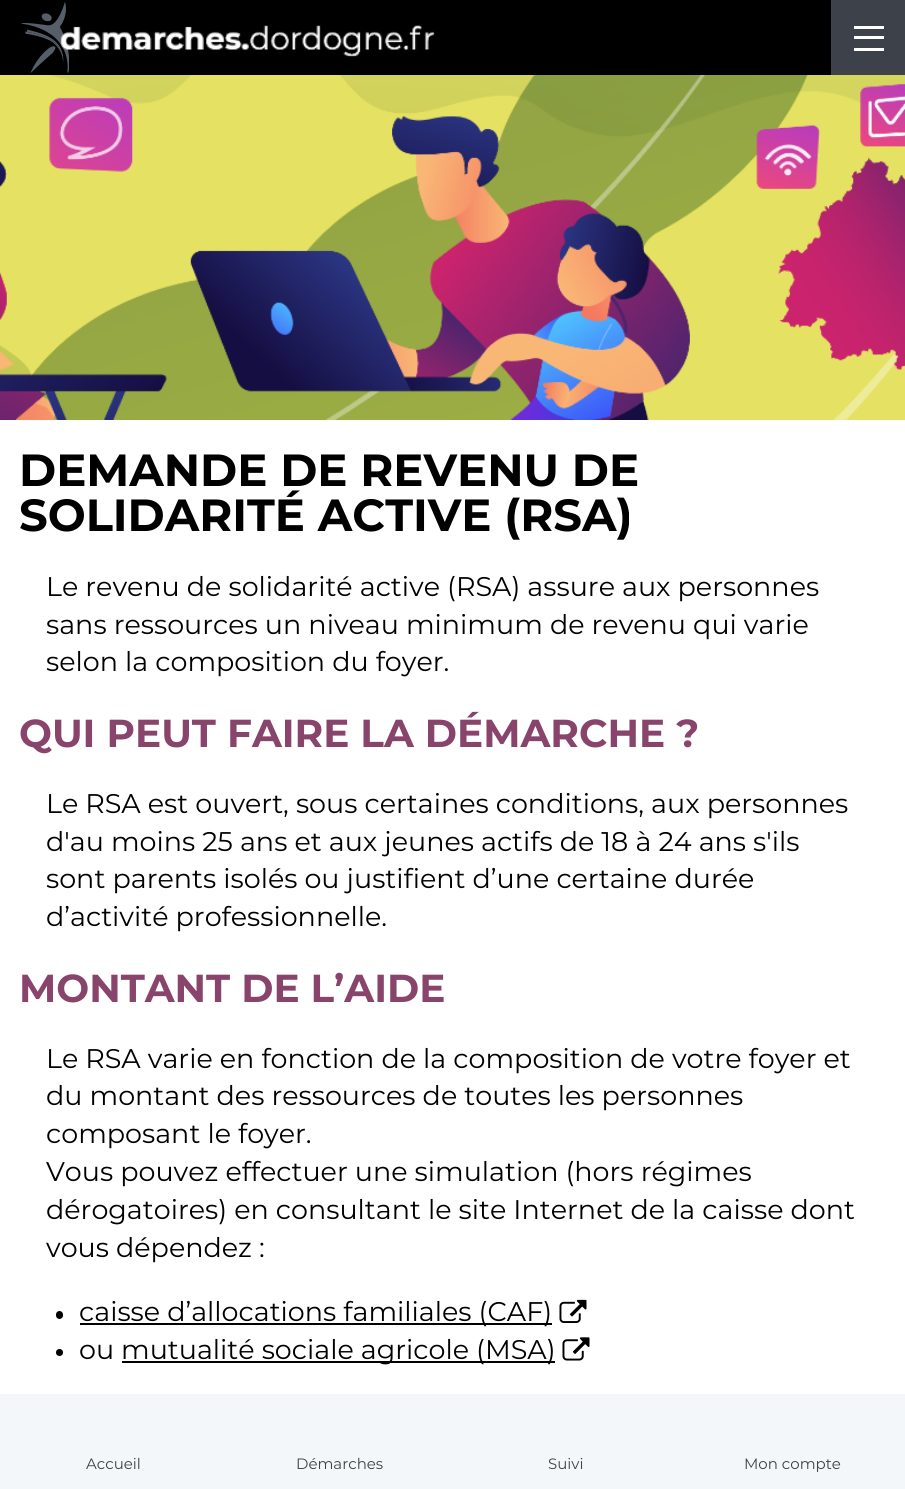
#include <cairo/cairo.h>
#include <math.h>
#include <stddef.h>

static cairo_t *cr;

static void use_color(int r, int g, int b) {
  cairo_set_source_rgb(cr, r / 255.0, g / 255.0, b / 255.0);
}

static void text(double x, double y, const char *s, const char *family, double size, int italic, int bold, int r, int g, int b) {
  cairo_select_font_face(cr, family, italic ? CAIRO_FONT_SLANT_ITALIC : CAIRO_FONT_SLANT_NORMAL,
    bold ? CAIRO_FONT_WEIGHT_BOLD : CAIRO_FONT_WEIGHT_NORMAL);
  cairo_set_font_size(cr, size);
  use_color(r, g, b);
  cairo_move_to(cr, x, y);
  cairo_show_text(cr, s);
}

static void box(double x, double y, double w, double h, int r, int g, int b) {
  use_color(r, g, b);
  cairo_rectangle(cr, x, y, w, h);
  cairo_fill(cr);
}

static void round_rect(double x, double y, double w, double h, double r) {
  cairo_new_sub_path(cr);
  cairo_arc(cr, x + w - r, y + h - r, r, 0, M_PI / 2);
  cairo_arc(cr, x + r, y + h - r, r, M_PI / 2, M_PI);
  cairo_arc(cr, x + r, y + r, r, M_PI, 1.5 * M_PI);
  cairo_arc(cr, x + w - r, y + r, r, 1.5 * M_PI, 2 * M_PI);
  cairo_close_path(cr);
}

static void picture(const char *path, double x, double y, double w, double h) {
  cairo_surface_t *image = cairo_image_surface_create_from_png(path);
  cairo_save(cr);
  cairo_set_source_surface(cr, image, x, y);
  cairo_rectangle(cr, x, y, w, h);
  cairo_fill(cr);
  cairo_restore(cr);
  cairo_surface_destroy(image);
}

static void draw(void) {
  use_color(255, 255, 255);
  cairo_paint(cr);
  picture("img_01.png", 0, 75, 905, 345);
  box(0, 0, 831, 75, 0, 0, 0);
  picture("img_02.png", 21, 2, 48, 71);
  picture("img_03.png", 60, 25, 375, 32);
  box(831, 0, 74, 75, 61, 66, 74);
  box(854, 26, 30, 3, 255, 255, 255);
  box(854, 36, 30, 3, 255, 255, 255);
  box(854, 48, 30, 3, 255, 255, 255);
  use_color(0, 0, 0);
  round_rect(56, 1311, 7, 8, 3.5);
  cairo_fill(cr);
  box(80, 1323, 472, 2, 0, 0, 0);
  picture("img_04.png", 559, 1299, 28, 24);
  cairo_arc(cr, 59.5, 1352.5, 3.5, 0, 2 * M_PI);
  cairo_fill(cr);
  box(122, 1361, 433, 2, 0, 0, 0);
  picture("img_05.png", 562, 1337, 28, 24);
  box(0, 1394, 905, 95, 244, 247, 250);
  text(19, 486, "DEMANDE DE REVENU DE", "Montserrat", 45, 0, 1, 0, 0, 0);
  text(19, 531, "SOLIDARITÉ ACTIVE (RSA)", "Montserrat", 45, 0, 1, 0, 0, 0);
  text(46, 596, "Le revenu de solidarité active (RSA) assure aux personnes", "Montserrat", 27, 0, 0, 0, 0, 0);
  text(46, 634, "sans ressources un niveau minimum de revenu qui varie", "Montserrat", 27, 0, 0, 0, 0, 0);
  text(46, 671, "selon la composition du foyer.", "Montserrat", 27, 0, 0, 0, 0, 0);
  text(19, 747, "QUI PEUT FAIRE LA DÉMARCHE ?", "Montserrat", 39, 0, 1, 136, 68, 107);
  text(46, 813, "Le RSA est ouvert, sous certaines conditions, aux personnes", "Montserrat", 27, 0, 0, 0, 0, 0);
  text(46, 851, "d'au moins 25 ans et aux jeunes actifs de 18 à 24 ans s'ils", "Montserrat", 27, 0, 0, 0, 0, 0);
  text(46, 888, "sont parents isolés ou justifient d’une certaine durée", "Montserrat", 27, 0, 0, 0, 0, 0);
  text(46, 926, "d’activité professionnelle.", "Montserrat", 27, 0, 0, 0, 0, 0);
  text(19, 1002, "MONTANT DE L’AIDE", "Montserrat", 39, 0, 1, 136, 68, 107);
  text(46, 1068, "Le RSA varie en fonction de la composition de votre foyer et", "Montserrat", 27, 0, 0, 0, 0, 0);
  text(46, 1105, "du montant des ressources de toutes les personnes", "Montserrat", 27, 0, 0, 0, 0, 0);
  text(46, 1143, "composant le foyer.", "Montserrat", 27, 0, 0, 0, 0, 0);
  text(46, 1181, "Vous pouvez effectuer une simulation (hors régimes", "Montserrat", 27, 0, 0, 0, 0, 0);
  text(46, 1219, "dérogatoires) en consultant le site Internet de la caisse dont", "Montserrat", 27, 0, 0, 0, 0, 0);
  text(46, 1257, "vous dépendez :", "Montserrat", 27, 0, 0, 0, 0, 0);
  text(79, 1321, "caisse d’allocations familiales (CAF)", "Montserrat", 27, 0, 0, 0, 0, 0);
  text(79, 1359, "ou", "Montserrat", 27, 0, 0, 0, 0, 0);
  text(121, 1359, "mutualité sociale agricole (MSA)", "Montserrat", 27, 0, 0, 0, 0, 0);
  text(86, 1469, "Accueil", "Montserrat", 15, 0, 0, 61, 66, 74);
  text(296, 1469, "Démarches", "Montserrat", 15, 0, 0, 61, 66, 74);
  text(548, 1469, "Suivi", "Montserrat", 15, 0, 0, 61, 66, 74);
  text(744, 1469, "Mon compte", "Montserrat", 15, 0, 0, 61, 66, 74);
}

int main(void) {
  cairo_surface_t *surface = cairo_image_surface_create(CAIRO_FORMAT_RGB24, 905, 1489);
  cr = cairo_create(surface);
  cairo_font_options_t *options = cairo_font_options_create();
  cairo_font_options_set_hint_metrics(options, CAIRO_HINT_METRICS_OFF);
  cairo_font_options_set_hint_style(options, CAIRO_HINT_STYLE_NONE);
  cairo_set_font_options(cr, options);
  cairo_set_miter_limit(cr, 4);
  draw();
  cairo_surface_write_to_png(surface, "out.png");
  cairo_font_options_destroy(options);
  cairo_destroy(cr);
  cairo_surface_destroy(surface);
  return 0;
}
